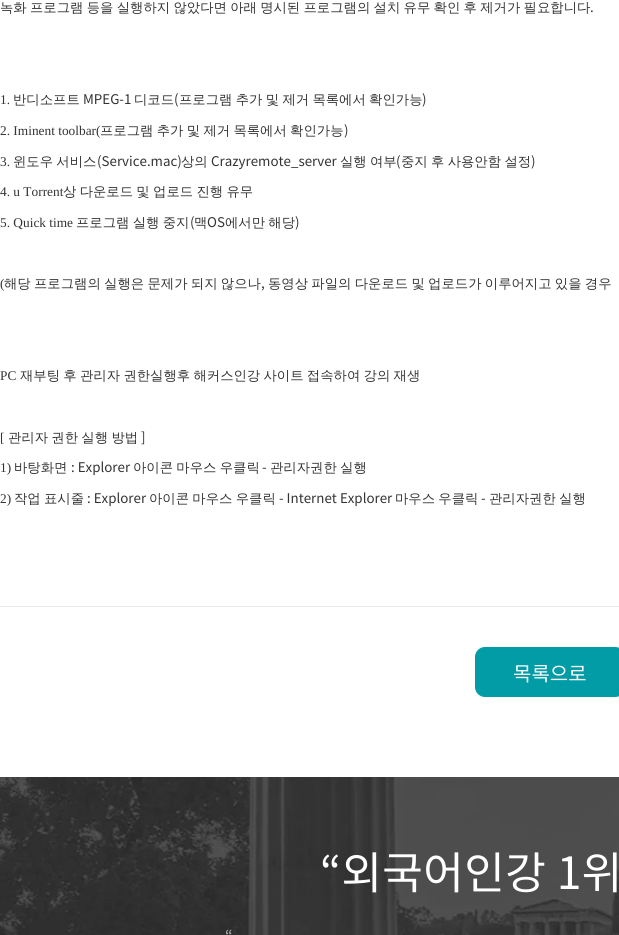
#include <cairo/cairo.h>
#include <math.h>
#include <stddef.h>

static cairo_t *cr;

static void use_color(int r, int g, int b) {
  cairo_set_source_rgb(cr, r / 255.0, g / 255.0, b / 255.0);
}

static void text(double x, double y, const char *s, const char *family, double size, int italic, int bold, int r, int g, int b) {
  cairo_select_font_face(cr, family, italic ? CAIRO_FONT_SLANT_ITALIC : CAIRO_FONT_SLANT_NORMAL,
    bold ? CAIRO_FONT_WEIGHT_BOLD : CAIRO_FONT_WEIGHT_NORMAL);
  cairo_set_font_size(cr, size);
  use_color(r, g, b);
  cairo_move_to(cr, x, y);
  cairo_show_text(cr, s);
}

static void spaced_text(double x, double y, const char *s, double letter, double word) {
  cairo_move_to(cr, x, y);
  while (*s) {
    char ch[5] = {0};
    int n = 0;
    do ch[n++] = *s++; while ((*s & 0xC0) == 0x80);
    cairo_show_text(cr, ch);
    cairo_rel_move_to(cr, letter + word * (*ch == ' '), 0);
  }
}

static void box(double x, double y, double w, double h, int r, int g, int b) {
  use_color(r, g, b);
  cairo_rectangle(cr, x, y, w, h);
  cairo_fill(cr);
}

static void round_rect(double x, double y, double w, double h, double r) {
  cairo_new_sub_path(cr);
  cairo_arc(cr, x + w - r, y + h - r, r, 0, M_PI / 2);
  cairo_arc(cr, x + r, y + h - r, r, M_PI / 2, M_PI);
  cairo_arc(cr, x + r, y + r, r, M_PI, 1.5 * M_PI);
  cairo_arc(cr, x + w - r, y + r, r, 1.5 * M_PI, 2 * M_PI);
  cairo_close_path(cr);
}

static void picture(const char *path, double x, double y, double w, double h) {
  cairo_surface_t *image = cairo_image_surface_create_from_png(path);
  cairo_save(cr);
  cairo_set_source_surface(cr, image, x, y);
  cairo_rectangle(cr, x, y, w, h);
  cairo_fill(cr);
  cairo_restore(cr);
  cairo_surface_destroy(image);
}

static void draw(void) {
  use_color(255, 255, 255);
  cairo_paint(cr);
  box(0, 606, 619, 1, 233, 233, 233);
  use_color(1, 156, 166);
  round_rect(475.5, 647.5, 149, 49, 9.5);
  cairo_fill_preserve(cr);
  cairo_set_line_width(cr, 1);
  cairo_stroke(cr);
  picture("img_01.png", 0, 777, 619, 158);
  cairo_select_font_face(cr, "WenQuanYi Zen Hei Medium", CAIRO_FONT_SLANT_NORMAL, CAIRO_FONT_WEIGHT_NORMAL);
  cairo_set_font_size(cr, 13.35);
  use_color(51, 51, 51);
  spaced_text(0, 12, "녹화 프로그램 등을 실행하지 않았다면 아래 명시된 프로그램의 설치 유무 확인 후 제거가 필요합니다", 0, -0.7);
  text(590, 12, ".", "Noto Sans KR", 13.35, 0, 0, 51, 51, 51);
  text(0, 104, "1.", "Liberation Serif", 13.35, 0, 0, 51, 51, 51);
  text(13, 104, "반디소프트", "WenQuanYi Zen Hei Medium", 13.35, 0, 0, 51, 51, 51);
  text(83, 104, "MPEG-1", "Noto Sans KR", 13.35, 0, 0, 51, 51, 51);
  text(134, 104, "디코드", "WenQuanYi Zen Hei Medium", 13.35, 0, 0, 51, 51, 51);
  text(174, 104, "(", "Noto Sans KR", 13.35, 0, 0, 51, 51, 51);
  cairo_select_font_face(cr, "WenQuanYi Zen Hei Medium", CAIRO_FONT_SLANT_NORMAL, CAIRO_FONT_WEIGHT_NORMAL);
  spaced_text(179, 104, "프로그램 추가 및 제거 목록에서 확인가능", 0, -0.7);
  text(422, 104, ")", "Noto Sans KR", 13.35, 0, 0, 51, 51, 51);
  text(0, 135, "2. Iminent toolbar(", "Liberation Serif", 13.35, 0, 0, 51, 51, 51);
  cairo_select_font_face(cr, "WenQuanYi Zen Hei Medium", CAIRO_FONT_SLANT_NORMAL, CAIRO_FONT_WEIGHT_NORMAL);
  spaced_text(100, 135, "프로그램 추가 및 제거 목록에서 확인가능", 0, -0.7);
  text(344, 135, ")", "Noto Sans KR", 13.35, 0, 0, 51, 51, 51);
  text(0, 166, "3.", "Liberation Serif", 13.35, 0, 0, 51, 51, 51);
  cairo_select_font_face(cr, "WenQuanYi Zen Hei Medium", CAIRO_FONT_SLANT_NORMAL, CAIRO_FONT_WEIGHT_NORMAL);
  spaced_text(13, 166, "윈도우 서비스", 0, -0.7);
  text(97, 166, "(Service.mac)", "Noto Sans KR", 13.35, 0, 0, 51, 51, 51);
  text(181, 166, "상의", "WenQuanYi Zen Hei Medium", 13.35, 0, 0, 51, 51, 51);
  text(211, 166, "Crazyremote_server", "Noto Sans KR", 13.35, 0, 0, 51, 51, 51);
  cairo_select_font_face(cr, "WenQuanYi Zen Hei Medium", CAIRO_FONT_SLANT_NORMAL, CAIRO_FONT_WEIGHT_NORMAL);
  spaced_text(340, 166, "실행 여부", 0, -0.7);
  text(396, 166, "(", "Noto Sans KR", 13.35, 0, 0, 51, 51, 51);
  cairo_select_font_face(cr, "WenQuanYi Zen Hei Medium", CAIRO_FONT_SLANT_NORMAL, CAIRO_FONT_WEIGHT_NORMAL);
  spaced_text(401, 166, "중지 후 사용안함 설정", 0, -0.7);
  text(531, 166, ")", "Noto Sans KR", 13.35, 0, 0, 51, 51, 51);
  text(0, 196, "4. u Torrent", "Liberation Serif", 13.35, 0, 0, 51, 51, 51);
  cairo_select_font_face(cr, "WenQuanYi Zen Hei Medium", CAIRO_FONT_SLANT_NORMAL, CAIRO_FONT_WEIGHT_NORMAL);
  spaced_text(63, 196, "상 다운로드 및 업로드 진행 유무", 0, -0.7);
  text(0, 227, "5. Quick time", "Liberation Serif", 13.35, 0, 0, 51, 51, 51);
  cairo_select_font_face(cr, "WenQuanYi Zen Hei Medium", CAIRO_FONT_SLANT_NORMAL, CAIRO_FONT_WEIGHT_NORMAL);
  spaced_text(76, 227, "프로그램 실행 중지", 0, -0.7);
  text(190, 227, "(", "Noto Sans KR", 13.35, 0, 0, 51, 51, 51);
  text(194, 227, "맥", "WenQuanYi Zen Hei Medium", 13.35, 0, 0, 51, 51, 51);
  text(207, 227, "OS", "Noto Sans KR", 13.35, 0, 0, 51, 51, 51);
  cairo_select_font_face(cr, "WenQuanYi Zen Hei Medium", CAIRO_FONT_SLANT_NORMAL, CAIRO_FONT_WEIGHT_NORMAL);
  spaced_text(225, 227, "에서만 해당", 0, -0.7);
  text(295, 227, ")", "Noto Sans KR", 13.35, 0, 0, 51, 51, 51);
  text(0, 288, "(", "Liberation Serif", 13.35, 0, 0, 51, 51, 51);
  cairo_select_font_face(cr, "WenQuanYi Zen Hei Medium", CAIRO_FONT_SLANT_NORMAL, CAIRO_FONT_WEIGHT_NORMAL);
  spaced_text(4, 288, "해당 프로그램의 실행은 문제가 되지 않으나", 0, -0.7);
  text(261, 288, ",", "Noto Sans KR", 13.35, 0, 0, 51, 51, 51);
  cairo_select_font_face(cr, "WenQuanYi Zen Hei Medium", CAIRO_FONT_SLANT_NORMAL, CAIRO_FONT_WEIGHT_NORMAL);
  spaced_text(268, 288, "동영상 파일의 다운로드 및 업로드가 이루어지고 있을 경우", 0, -0.7);
  text(0, 380, "PC", "Liberation Serif", 13.35, 0, 0, 51, 51, 51);
  cairo_select_font_face(cr, "WenQuanYi Zen Hei Medium", CAIRO_FONT_SLANT_NORMAL, CAIRO_FONT_WEIGHT_NORMAL);
  spaced_text(20, 380, "재부팅 후 관리자 권한실행후 해커스인강 사이트 접속하여 강의 재생", 0, -0.7);
  text(0, 442, "[", "Liberation Serif", 13.35, 0, 0, 51, 51, 51);
  cairo_select_font_face(cr, "WenQuanYi Zen Hei Medium", CAIRO_FONT_SLANT_NORMAL, CAIRO_FONT_WEIGHT_NORMAL);
  spaced_text(8, 442, "관리자 권한 실행 방법", 0, -0.7);
  text(141, 442, "]", "Noto Sans KR", 13.35, 0, 0, 51, 51, 51);
  text(0, 472, "1)", "Liberation Serif", 13.35, 0, 0, 51, 51, 51);
  text(14, 472, "바탕화면", "WenQuanYi Zen Hei Medium", 13.35, 0, 0, 51, 51, 51);
  text(71, 472, ": Explorer", "Noto Sans KR", 13.35, 0, 0, 51, 51, 51);
  cairo_select_font_face(cr, "WenQuanYi Zen Hei Medium", CAIRO_FONT_SLANT_NORMAL, CAIRO_FONT_WEIGHT_NORMAL);
  spaced_text(133, 472, "아이콘 마우스 우클릭", 0, -0.7);
  text(262, 472, "-", "Noto Sans KR", 13.35, 0, 0, 51, 51, 51);
  cairo_select_font_face(cr, "WenQuanYi Zen Hei Medium", CAIRO_FONT_SLANT_NORMAL, CAIRO_FONT_WEIGHT_NORMAL);
  spaced_text(270, 472, "관리자권한 실행", 0, -0.7);
  text(0, 503, "2)", "Liberation Serif", 13.35, 0, 0, 51, 51, 51);
  cairo_select_font_face(cr, "WenQuanYi Zen Hei Medium", CAIRO_FONT_SLANT_NORMAL, CAIRO_FONT_WEIGHT_NORMAL);
  spaced_text(14, 503, "작업 표시줄", 0, -0.7);
  text(87, 503, ": Explorer", "Noto Sans KR", 13.35, 0, 0, 51, 51, 51);
  cairo_select_font_face(cr, "WenQuanYi Zen Hei Medium", CAIRO_FONT_SLANT_NORMAL, CAIRO_FONT_WEIGHT_NORMAL);
  spaced_text(149, 503, "아이콘 마우스 우클릭", 0, -0.7);
  text(279, 503, "- Internet Explorer", "Noto Sans KR", 13.35, 0, 0, 51, 51, 51);
  cairo_select_font_face(cr, "WenQuanYi Zen Hei Medium", CAIRO_FONT_SLANT_NORMAL, CAIRO_FONT_WEIGHT_NORMAL);
  spaced_text(395, 503, "마우스 우클릭", 0, -0.7);
  text(481, 503, "-", "Noto Sans KR", 13.35, 0, 0, 51, 51, 51);
  cairo_select_font_face(cr, "WenQuanYi Zen Hei Medium", CAIRO_FONT_SLANT_NORMAL, CAIRO_FONT_WEIGHT_NORMAL);
  spaced_text(489, 503, "관리자권한 실행", 0, -0.7);
  text(513, 681, "목록으로", "Noto Sans KR", 20, 0, 0, 255, 255, 255);
  cairo_set_font_size(cr, 44.5);
  spaced_text(320, 889, "“외국어인강 1위", 0, 1);
  text(225, 942, "“", "Noto Sans KR", 16, 0, 0, 175, 175, 175);
}

int main(void) {
  cairo_surface_t *surface = cairo_image_surface_create(CAIRO_FORMAT_RGB24, 619, 935);
  cr = cairo_create(surface);
  cairo_font_options_t *options = cairo_font_options_create();
  cairo_font_options_set_hint_metrics(options, CAIRO_HINT_METRICS_OFF);
  cairo_font_options_set_hint_style(options, CAIRO_HINT_STYLE_NONE);
  cairo_set_font_options(cr, options);
  cairo_set_miter_limit(cr, 4);
  draw();
  cairo_surface_write_to_png(surface, "out.png");
  cairo_font_options_destroy(options);
  cairo_destroy(cr);
  cairo_surface_destroy(surface);
  return 0;
}
